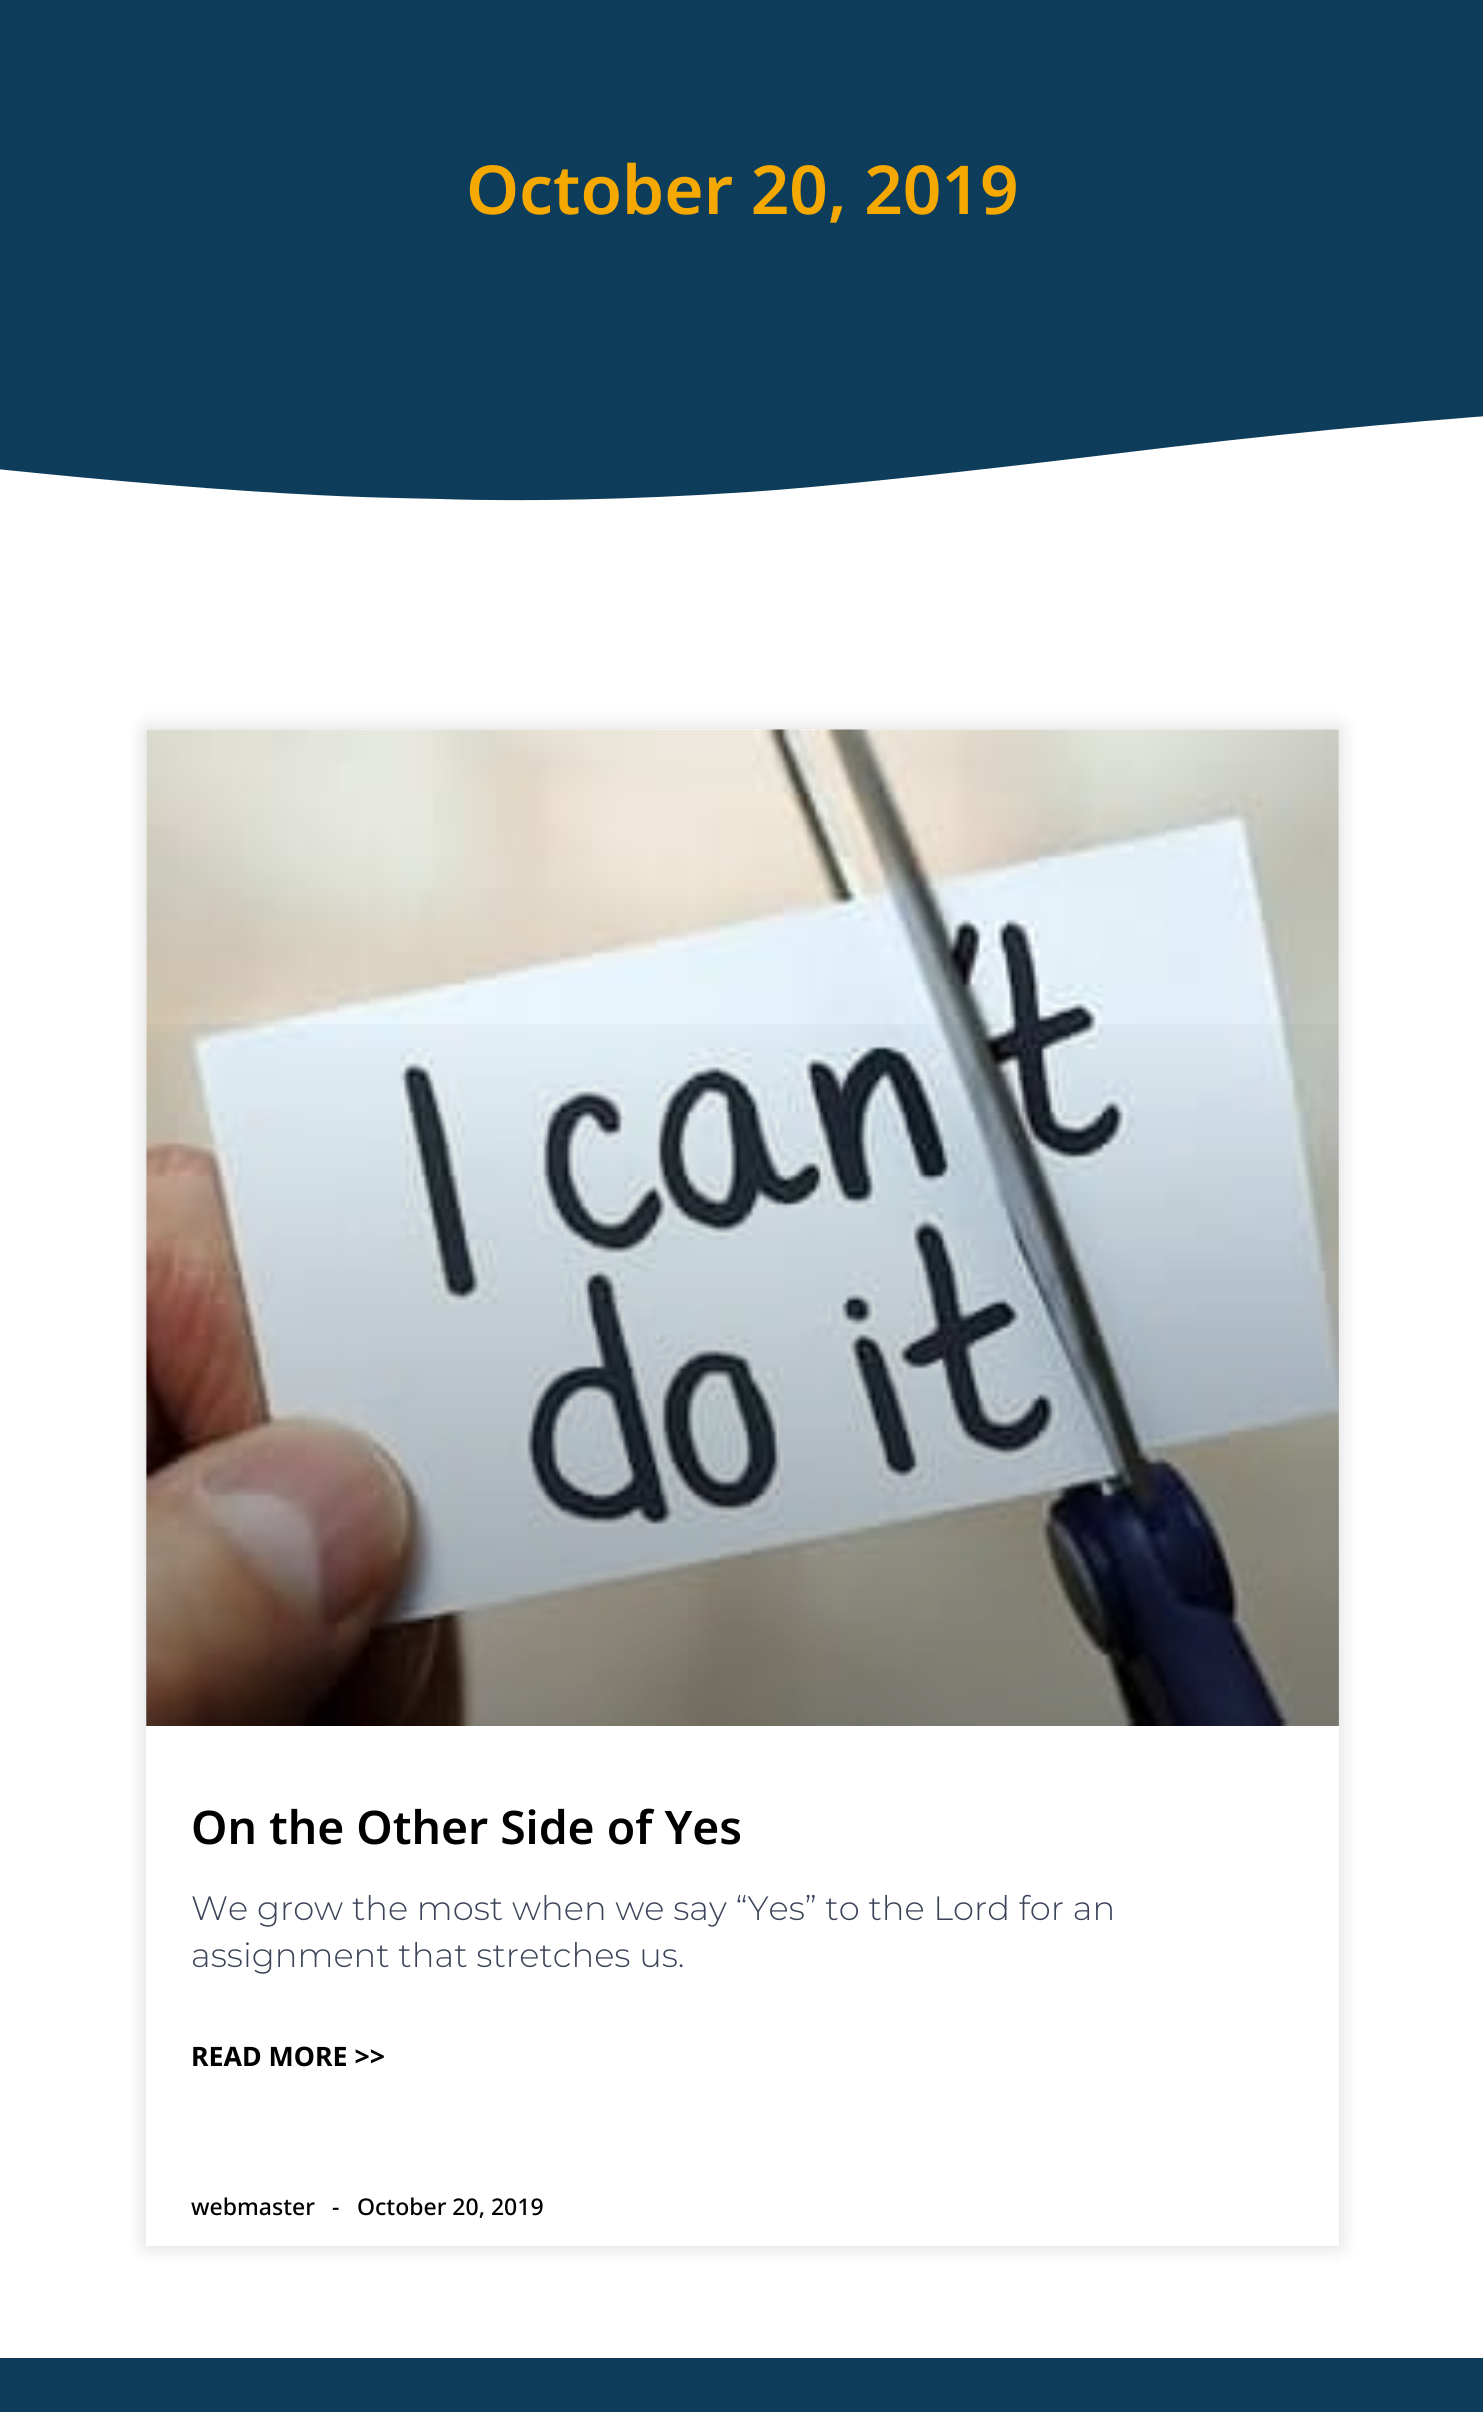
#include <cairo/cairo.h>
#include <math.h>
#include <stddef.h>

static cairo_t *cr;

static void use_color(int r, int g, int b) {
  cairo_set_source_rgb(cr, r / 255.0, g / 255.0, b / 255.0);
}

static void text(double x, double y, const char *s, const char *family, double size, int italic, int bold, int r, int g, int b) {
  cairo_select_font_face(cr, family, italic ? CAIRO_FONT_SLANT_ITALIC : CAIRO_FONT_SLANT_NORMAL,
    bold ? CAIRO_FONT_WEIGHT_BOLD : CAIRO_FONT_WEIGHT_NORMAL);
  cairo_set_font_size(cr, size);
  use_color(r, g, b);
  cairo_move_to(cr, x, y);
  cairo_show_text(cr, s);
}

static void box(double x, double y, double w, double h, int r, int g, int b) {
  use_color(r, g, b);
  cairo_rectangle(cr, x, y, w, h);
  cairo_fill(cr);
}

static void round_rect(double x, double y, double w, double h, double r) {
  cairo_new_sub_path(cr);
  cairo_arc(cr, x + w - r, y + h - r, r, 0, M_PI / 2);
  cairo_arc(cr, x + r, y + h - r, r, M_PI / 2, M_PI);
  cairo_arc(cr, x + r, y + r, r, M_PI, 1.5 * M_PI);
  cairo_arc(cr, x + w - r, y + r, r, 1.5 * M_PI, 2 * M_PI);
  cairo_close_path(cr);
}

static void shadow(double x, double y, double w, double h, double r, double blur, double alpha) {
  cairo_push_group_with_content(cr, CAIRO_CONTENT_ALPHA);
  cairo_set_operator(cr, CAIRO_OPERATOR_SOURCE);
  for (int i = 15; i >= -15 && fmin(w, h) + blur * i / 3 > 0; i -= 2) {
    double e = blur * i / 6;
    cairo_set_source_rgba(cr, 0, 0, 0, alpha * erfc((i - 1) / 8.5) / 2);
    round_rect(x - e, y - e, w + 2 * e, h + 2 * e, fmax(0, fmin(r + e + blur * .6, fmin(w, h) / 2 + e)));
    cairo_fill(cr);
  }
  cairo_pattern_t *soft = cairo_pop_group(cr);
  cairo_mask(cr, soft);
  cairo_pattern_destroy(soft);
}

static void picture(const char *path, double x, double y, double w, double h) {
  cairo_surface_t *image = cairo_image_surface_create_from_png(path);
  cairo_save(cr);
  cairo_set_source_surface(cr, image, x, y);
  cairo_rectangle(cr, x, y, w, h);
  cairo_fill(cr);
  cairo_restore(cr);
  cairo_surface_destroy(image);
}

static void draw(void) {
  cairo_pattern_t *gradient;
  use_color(13, 61, 91);
  cairo_paint(cr);
  box(0, 506, 1483, 1852, 255, 255, 255);
  cairo_save(cr);
  cairo_rectangle(cr, 0, 394, 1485, 112);
  cairo_clip(cr);
  cairo_new_path(cr);
  cairo_move_to(cr, 441, 499);
  cairo_curve_to(cr, 528, 502, 640, 499, 732, 493);
  cairo_curve_to(cr, 824, 488, 1006, 467, 1121, 453);
  cairo_curve_to(cr, 1414, 417, 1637, 403, 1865, 397);
  cairo_curve_to(cr, 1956, 395, 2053, 393, 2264, 400);
  cairo_curve_to(cr, 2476, 407, 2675, 429, 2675, 429);
  cairo_line_to(cr, 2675, 507);
  cairo_line_to(cr, -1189, 507);
  cairo_line_to(cr, -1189, 472);
  cairo_curve_to(cr, -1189, 472, -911, 436, -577, 438);
  cairo_curve_to(cr, -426, 439, -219, 446, -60, 463);
  cairo_curve_to(cr, 22, 472, 142, 484, 248, 491);
  cairo_curve_to(cr, 353, 498, 401, 498, 441, 499);
  cairo_close_path(cr);
  cairo_fill(cr);
  cairo_restore(cr);
  use_color(0, 0, 0);
  shadow(146, 729, 1193, 1517, 0, 11, 0.15);
  box(146, 729, 1193, 1517, 255, 255, 255);
  picture("img_01.png", 146, 729, 1193, 997);
  gradient = cairo_pattern_create_linear(743, 1726, 743, 729);
  cairo_pattern_add_color_stop_rgba(gradient, 0, 0, 0, 0, 0.35);
  cairo_pattern_add_color_stop_rgba(gradient, 0.75, 0, 0, 0, 0);
  cairo_set_source(cr, gradient);
  cairo_pattern_destroy(gradient);
  cairo_rectangle(cr, 146, 1024, 1193, 702);
  cairo_fill(cr);
  text(466, 214, "October 20, 2019", "Noto Sans SemiBold", 67.5, 0, 0, 245, 168, 0);
  text(191, 1844, "On the Other Side of Yes", "Noto Sans SemiBold", 46.25, 0, 0, 0, 0, 0);
  text(191, 1920, "We grow the most when we say “Yes” to the Lord for an", "Montserrat Light", 33.75, 0, 0, 61, 68, 89);
  text(191, 1967, "assignment that stretches us.", "Montserrat Light", 33.75, 0, 0, 61, 68, 89);
  text(191, 2066, "READ MORE >>", "Noto Sans", 26.75, 0, 1, 0, 0, 0);
  text(191, 2215, "webmaster", "Noto Sans Medium", 23, 0, 0, 0, 0, 0);
  text(332, 2215, "-", "Noto Sans Medium", 23, 0, 0, 0, 0, 0);
  text(357, 2215, "October 20, 2019", "Noto Sans Medium", 23, 0, 0, 0, 0, 0);
}

int main(void) {
  cairo_surface_t *surface = cairo_image_surface_create(CAIRO_FORMAT_RGB24, 1483, 2412);
  cr = cairo_create(surface);
  cairo_font_options_t *options = cairo_font_options_create();
  cairo_font_options_set_hint_metrics(options, CAIRO_HINT_METRICS_OFF);
  cairo_font_options_set_hint_style(options, CAIRO_HINT_STYLE_NONE);
  cairo_set_font_options(cr, options);
  cairo_set_miter_limit(cr, 4);
  draw();
  cairo_surface_write_to_png(surface, "out.png");
  cairo_font_options_destroy(options);
  cairo_destroy(cr);
  cairo_surface_destroy(surface);
  return 0;
}
